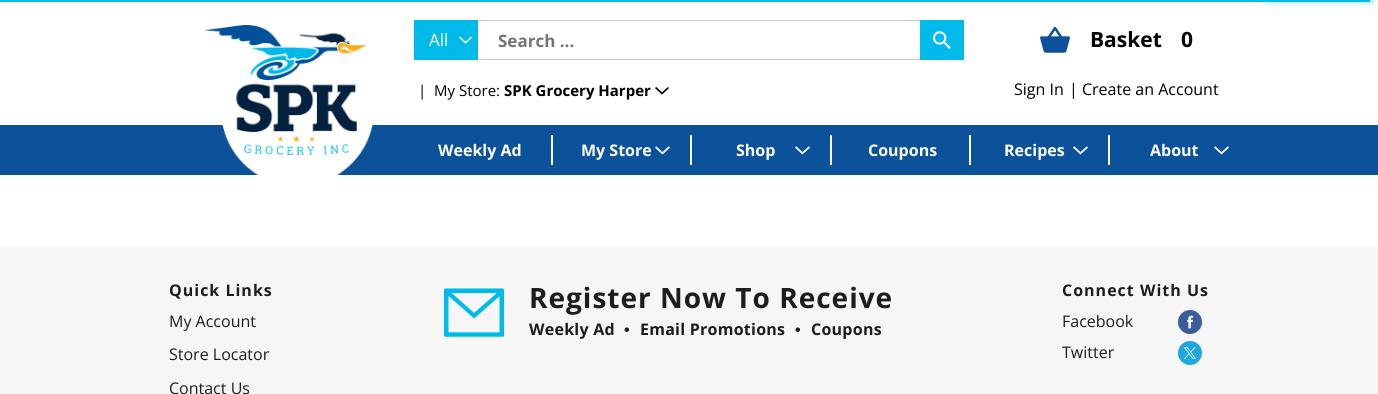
#include <cairo/cairo.h>
#include <math.h>
#include <stddef.h>

static cairo_t *cr;

static void use_color(int r, int g, int b) {
  cairo_set_source_rgb(cr, r / 255.0, g / 255.0, b / 255.0);
}

static void text(double x, double y, const char *s, const char *family, double size, int italic, int bold, int r, int g, int b) {
  cairo_select_font_face(cr, family, italic ? CAIRO_FONT_SLANT_ITALIC : CAIRO_FONT_SLANT_NORMAL,
    bold ? CAIRO_FONT_WEIGHT_BOLD : CAIRO_FONT_WEIGHT_NORMAL);
  cairo_set_font_size(cr, size);
  use_color(r, g, b);
  cairo_move_to(cr, x, y);
  cairo_show_text(cr, s);
}

static void spaced_text(double x, double y, const char *s, double letter, double word) {
  cairo_move_to(cr, x, y);
  while (*s) {
    char ch[5] = {0};
    int n = 0;
    do ch[n++] = *s++; while ((*s & 0xC0) == 0x80);
    cairo_show_text(cr, ch);
    cairo_rel_move_to(cr, letter + word * (*ch == ' '), 0);
  }
}

static void box(double x, double y, double w, double h, int r, int g, int b) {
  use_color(r, g, b);
  cairo_rectangle(cr, x, y, w, h);
  cairo_fill(cr);
}

static void round_rect(double x, double y, double w, double h, double r) {
  cairo_new_sub_path(cr);
  cairo_arc(cr, x + w - r, y + h - r, r, 0, M_PI / 2);
  cairo_arc(cr, x + r, y + h - r, r, M_PI / 2, M_PI);
  cairo_arc(cr, x + r, y + r, r, M_PI, 1.5 * M_PI);
  cairo_arc(cr, x + w - r, y + r, r, 1.5 * M_PI, 2 * M_PI);
  cairo_close_path(cr);
}

static void shadow(double x, double y, double w, double h, double r, double blur, double alpha) {
  cairo_push_group_with_content(cr, CAIRO_CONTENT_ALPHA);
  cairo_set_operator(cr, CAIRO_OPERATOR_SOURCE);
  for (int i = 15; i >= -15 && fmin(w, h) + blur * i / 3 > 0; i -= 2) {
    double e = blur * i / 6;
    cairo_set_source_rgba(cr, 0, 0, 0, alpha * erfc((i - 1) / 8.5) / 2);
    round_rect(x - e, y - e, w + 2 * e, h + 2 * e, fmax(0, fmin(r + e + blur * .6, fmin(w, h) / 2 + e)));
    cairo_fill(cr);
  }
  cairo_pattern_t *soft = cairo_pop_group(cr);
  cairo_mask(cr, soft);
  cairo_pattern_destroy(soft);
}

static void picture(const char *path, double x, double y, double w, double h) {
  cairo_surface_t *image = cairo_image_surface_create_from_png(path);
  cairo_save(cr);
  cairo_set_source_surface(cr, image, x, y);
  cairo_rectangle(cr, x, y, w, h);
  cairo_fill(cr);
  cairo_restore(cr);
  cairo_surface_destroy(image);
}

static void draw(void) {
  use_color(255, 255, 255);
  cairo_paint(cr);
  box(0, 0, 1370, 2, 0, 186, 233);
  use_color(0, 186, 233);
  shadow(1270, -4, 100, 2, 0, 2.5, 1);
  shadow(1270, -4, 100, 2, 0, 5, 1);
  box(0, 125, 1378, 50, 11, 82, 154);
  picture("img_01.png", 204, 25, 169, 150);
  box(414, 20, 64, 40, 0, 186, 233);
  picture("img_02.png", 459, 36, 13, 8);
  box(478, 20, 442, 1, 204, 204, 204);
  box(478, 59, 442, 1, 204, 204, 204);
  box(920, 20, 44, 40, 0, 186, 233);
  picture("img_03.png", 933, 31, 18, 19);
  picture("img_04.png", 1040, 26, 30, 27);
  picture("img_05.png", 655, 87, 14, 8);
  box(551, 135, 2, 30, 255, 255, 255);
  box(690, 135, 2, 30, 255, 255, 255);
  picture("img_06.png", 655, 146, 15, 9);
  box(830, 135, 2, 30, 255, 255, 255);
  picture("img_06.png", 795, 146, 15, 9);
  box(969, 135, 2, 30, 255, 255, 255);
  box(1108, 135, 2, 30, 255, 255, 255);
  picture("img_06.png", 1073, 146, 15, 9);
  picture("img_06.png", 1214, 146, 15, 9);
  box(0, 246, 1378, 148, 246, 246, 246);
  picture("img_07.png", 444, 288, 60, 49);
  picture("img_08.png", 1178, 310, 24, 24);
  picture("img_09.png", 1178, 341, 24, 24);
  text(429, 46, "All", "Open Sans", 17, 0, 0, 255, 255, 255);
  text(498, 47, "Search ...", "Open Sans", 17, 0, 1, 117, 117, 117);
  text(1090, 47, "Basket", "Open Sans", 21, 0, 1, 0, 0, 0);
  text(1181, 47, "0", "Open Sans", 21, 0, 1, 0, 0, 0);
  text(418, 96, "|", "Open Sans", 15, 0, 0, 0, 0, 0);
  text(434, 96, "My Store:", "Open Sans", 15, 0, 0, 0, 0, 0);
  text(504, 96, "SPK Grocery Harper", "Open Sans", 15, 0, 1, 0, 0, 0);
  text(1014, 95, "Sign In", "Open Sans", 16, 0, 0, 0, 0, 0);
  text(1069, 95, "|", "Open Sans", 16, 0, 0, 0, 0, 0);
  text(1082, 95, "Create an Account", "Open Sans", 16, 0, 0, 0, 0, 0);
  text(438, 156, "Weekly Ad", "Open Sans", 16, 0, 1, 255, 255, 255);
  text(581, 156, "My Store", "Open Sans", 16, 0, 1, 255, 255, 255);
  text(736, 156, "Shop", "Open Sans", 16, 0, 1, 255, 255, 255);
  text(868, 156, "Coupons", "Open Sans", 16, 0, 1, 255, 255, 255);
  text(1004, 156, "Recipes", "Open Sans", 16, 0, 1, 255, 255, 255);
  text(1150, 156, "About", "Open Sans", 16, 0, 1, 255, 255, 255);
  use_color(29, 29, 31);
  spaced_text(169, 296, "Quick Links", 1, 0);
  text(169, 327, "My Account", "Open Sans", 16, 0, 0, 29, 29, 31);
  text(169, 360, "Store Locator", "Open Sans", 16, 0, 0, 29, 29, 31);
  text(169, 394, "Contact Us", "Open Sans", 16, 0, 0, 29, 29, 31);
  cairo_select_font_face(cr, "Open Sans", CAIRO_FONT_SLANT_NORMAL, CAIRO_FONT_WEIGHT_BOLD);
  cairo_set_font_size(cr, 28);
  spaced_text(529, 308, "Register Now To Receive", 1, 0);
  cairo_set_font_size(cr, 16);
  spaced_text(529, 335, "Weekly Ad", 0.25, 0);
  cairo_select_font_face(cr, "Liberation Sans", CAIRO_FONT_SLANT_NORMAL, CAIRO_FONT_WEIGHT_BOLD);
  spaced_text(624, 335, "•", 0.25, 0);
  cairo_select_font_face(cr, "Open Sans", CAIRO_FONT_SLANT_NORMAL, CAIRO_FONT_WEIGHT_BOLD);
  spaced_text(640, 335, "Email Promotions", 0.25, 0);
  cairo_select_font_face(cr, "Liberation Sans", CAIRO_FONT_SLANT_NORMAL, CAIRO_FONT_WEIGHT_BOLD);
  spaced_text(795, 335, "•", 0.25, 0);
  cairo_select_font_face(cr, "Open Sans", CAIRO_FONT_SLANT_NORMAL, CAIRO_FONT_WEIGHT_BOLD);
  spaced_text(811, 335, "Coupons", 0.25, 0);
  spaced_text(1062, 296, "Connect With Us", 1, 0);
  text(1062, 327, "Facebook", "Open Sans", 16, 0, 0, 29, 29, 31);
  text(1062, 358, "Twitter", "Open Sans", 16, 0, 0, 29, 29, 31);
}

int main(void) {
  cairo_surface_t *surface = cairo_image_surface_create(CAIRO_FORMAT_RGB24, 1378, 394);
  cr = cairo_create(surface);
  cairo_font_options_t *options = cairo_font_options_create();
  cairo_font_options_set_hint_metrics(options, CAIRO_HINT_METRICS_OFF);
  cairo_font_options_set_hint_style(options, CAIRO_HINT_STYLE_NONE);
  cairo_set_font_options(cr, options);
  cairo_set_miter_limit(cr, 4);
  draw();
  cairo_surface_write_to_png(surface, "out.png");
  cairo_font_options_destroy(options);
  cairo_destroy(cr);
  cairo_surface_destroy(surface);
  return 0;
}
